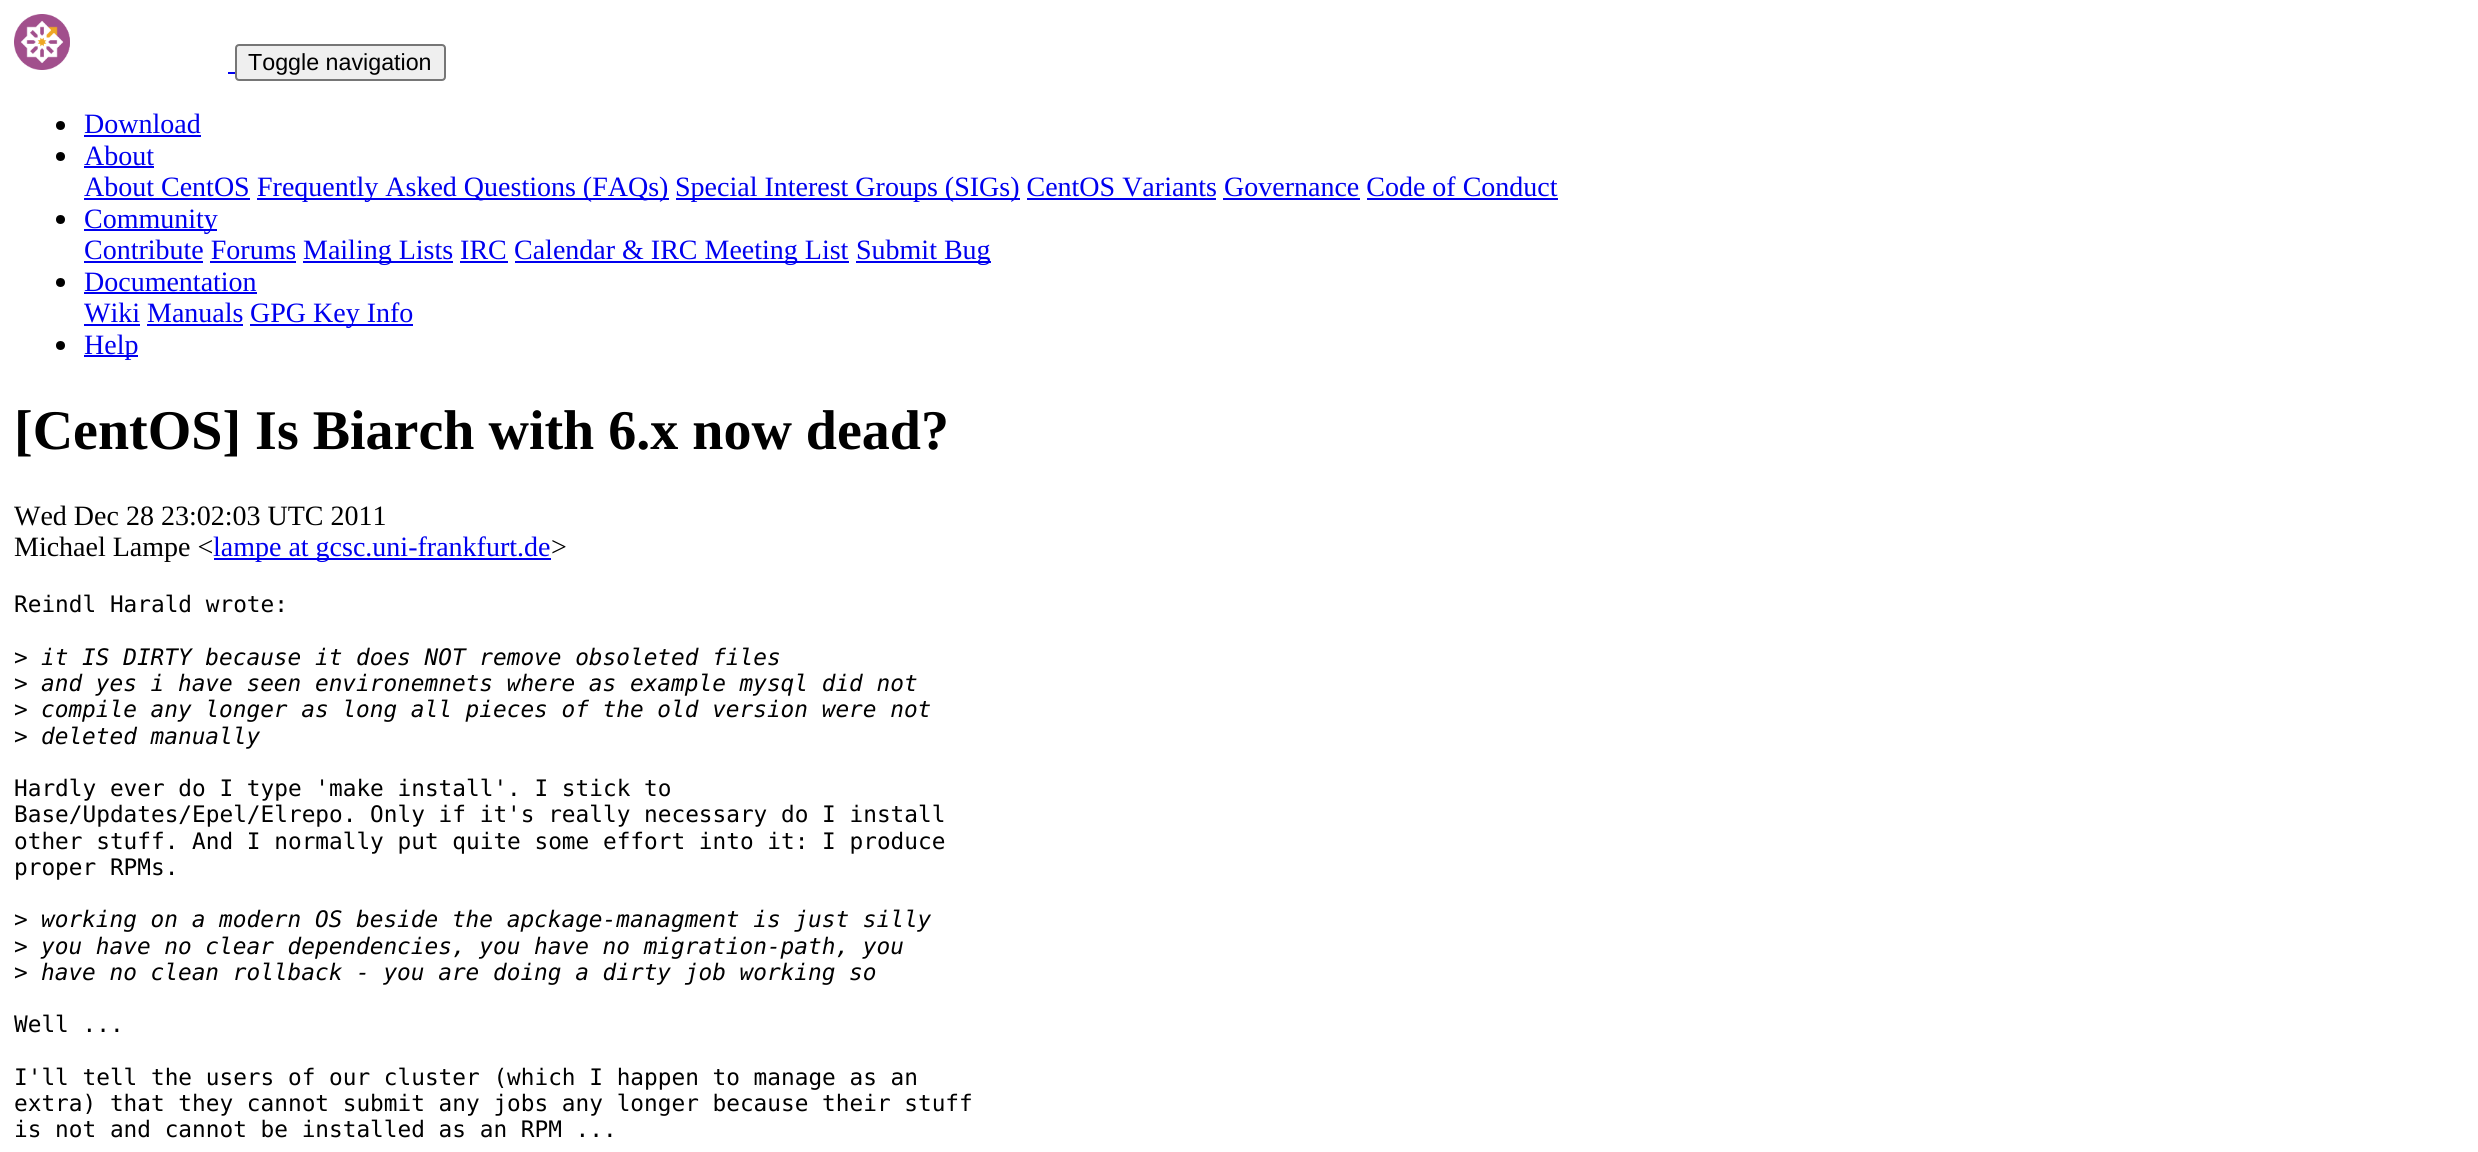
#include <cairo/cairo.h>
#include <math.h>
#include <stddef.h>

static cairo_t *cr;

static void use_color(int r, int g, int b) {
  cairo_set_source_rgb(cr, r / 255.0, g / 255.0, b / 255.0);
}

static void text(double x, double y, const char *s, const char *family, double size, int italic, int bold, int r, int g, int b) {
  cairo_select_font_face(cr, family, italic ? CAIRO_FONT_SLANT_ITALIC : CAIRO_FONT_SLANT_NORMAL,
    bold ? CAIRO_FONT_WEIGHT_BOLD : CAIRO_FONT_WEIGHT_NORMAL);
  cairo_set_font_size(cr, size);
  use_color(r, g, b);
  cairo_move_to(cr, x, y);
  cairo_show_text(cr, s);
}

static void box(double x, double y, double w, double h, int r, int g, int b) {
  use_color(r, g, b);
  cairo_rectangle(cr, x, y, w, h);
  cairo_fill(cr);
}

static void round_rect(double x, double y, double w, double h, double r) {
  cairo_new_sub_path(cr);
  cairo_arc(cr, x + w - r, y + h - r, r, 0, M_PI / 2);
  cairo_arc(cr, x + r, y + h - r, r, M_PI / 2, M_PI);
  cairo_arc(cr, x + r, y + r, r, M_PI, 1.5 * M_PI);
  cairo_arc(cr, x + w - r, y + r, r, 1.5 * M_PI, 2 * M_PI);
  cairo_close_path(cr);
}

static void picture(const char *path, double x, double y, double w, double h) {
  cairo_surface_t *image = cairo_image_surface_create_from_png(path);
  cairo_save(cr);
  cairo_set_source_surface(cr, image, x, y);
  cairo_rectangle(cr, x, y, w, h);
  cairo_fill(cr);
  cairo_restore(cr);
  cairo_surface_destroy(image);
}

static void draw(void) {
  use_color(255, 255, 255);
  cairo_paint(cr);
  picture("img_01.png", 14, 14, 56, 56);
  box(228, 72, 7, 2, 0, 0, 238);
  use_color(239, 239, 239);
  round_rect(236, 45, 209, 35, 3);
  cairo_fill_preserve(cr);
  use_color(118, 118, 118);
  cairo_stroke(cr);
  use_color(0, 0, 0);
  cairo_arc(cr, 60.5, 125.5, 4.5, 0, 2 * M_PI);
  cairo_fill(cr);
  box(84, 135, 117, 2, 0, 0, 238);
  use_color(0, 0, 0);
  cairo_arc(cr, 60.5, 156.5, 4.5, 0, 2 * M_PI);
  cairo_fill(cr);
  box(84, 166, 70, 2, 0, 0, 238);
  box(84, 198, 166, 2, 0, 0, 238);
  box(257, 198, 412, 2, 0, 0, 238);
  box(676, 198, 344, 2, 0, 0, 238);
  box(1027, 198, 189, 2, 0, 0, 238);
  box(1223, 198, 137, 2, 0, 0, 238);
  box(1367, 198, 191, 2, 0, 0, 238);
  use_color(0, 0, 0);
  cairo_arc(cr, 60.5, 219.5, 4.5, 0, 2 * M_PI);
  cairo_fill(cr);
  box(84, 229, 133, 2, 0, 0, 238);
  box(84, 261, 119, 2, 0, 0, 238);
  box(303, 261, 150, 2, 0, 0, 238);
  box(515, 261, 334, 2, 0, 0, 238);
  box(856, 261, 135, 2, 0, 0, 238);
  box(210, 261, 86, 2, 0, 0, 238);
  box(460, 261, 48, 2, 0, 0, 238);
  use_color(0, 0, 0);
  cairo_arc(cr, 60.5, 282.5, 4.5, 0, 2 * M_PI);
  cairo_fill(cr);
  box(84, 292, 173, 2, 0, 0, 238);
  box(84, 324, 56, 2, 0, 0, 238);
  box(250, 324, 163, 2, 0, 0, 238);
  box(147, 324, 96, 2, 0, 0, 238);
  use_color(0, 0, 0);
  cairo_arc(cr, 60.5, 345.5, 4.5, 0, 2 * M_PI);
  cairo_fill(cr);
  box(84, 355, 54, 2, 0, 0, 238);
  box(214, 558, 337, 2, 0, 0, 238);
  text(248, 70, "Toggle navigation", "Liberation Sans", 23.25, 0, 0, 0, 0, 0);
  text(84, 133, "Download", "Liberation Serif", 28, 0, 0, 0, 0, 238);
  text(84, 165, "About", "Liberation Serif", 28, 0, 0, 0, 0, 238);
  text(84, 196, "About CentOS", "Liberation Serif", 28, 0, 0, 0, 0, 238);
  text(257, 196, "Frequently Asked Questions (FAQs)", "Liberation Serif", 28, 0, 0, 0, 0, 238);
  text(675, 196, "Special Interest Groups (SIGs) CentOS Variants Governance Code of Conduct", "Liberation Serif", 28, 0, 0, 0, 0, 238);
  text(84, 228, "Community", "Liberation Serif", 28, 0, 0, 0, 0, 238);
  text(84, 259, "Contribute Forums", "Liberation Serif", 28, 0, 0, 0, 0, 238);
  text(303, 259, "Mailing Lists IRC", "Liberation Serif", 28, 0, 0, 0, 0, 238);
  text(514, 259, "Calendar & IRC Meeting List", "Liberation Serif", 28, 0, 0, 0, 0, 238);
  text(856, 259, "Submit Bug", "Liberation Serif", 28, 0, 0, 0, 0, 238);
  text(84, 291, "Documentation", "Liberation Serif", 28, 0, 0, 0, 0, 238);
  text(84, 322, "Wiki Manuals", "Liberation Serif", 28, 0, 0, 0, 0, 238);
  text(250, 322, "GPG Key Info", "Liberation Serif", 28, 0, 0, 0, 0, 238);
  text(84, 354, "Help", "Liberation Serif", 28, 0, 0, 0, 0, 238);
  text(14, 449, "[CentOS] Is Biarch with 6.x now dead?", "Liberation Serif", 56, 0, 1, 0, 0, 0);
  text(14, 525, "Wed Dec 28 23:02:03 UTC 2011", "Liberation Serif", 28, 0, 0, 0, 0, 0);
  text(14, 556, "Michael Lampe <", "Liberation Serif", 28, 0, 0, 0, 0, 0);
  text(213, 556, "lampe at gcsc.uni-frankfurt.de", "Liberation Serif", 28, 0, 0, 0, 0, 238);
  text(551, 556, ">", "Liberation Serif", 28, 0, 0, 0, 0, 0);
  text(14, 612, "Reindl Harald wrote:", "DejaVu Sans Mono", 22.75, 0, 0, 0, 0, 0);
  text(14, 665, ">", "DejaVu Sans Mono", 22.75, 0, 0, 0, 0, 0);
  text(41, 665, "it IS DIRTY because it does NOT remove obsoleted files", "DejaVu Sans Mono", 22.75, 1, 0, 0, 0, 0);
  text(14, 691, ">", "DejaVu Sans Mono", 22.75, 0, 0, 0, 0, 0);
  text(41, 691, "and yes i have seen environemnets where as example mysql did not", "DejaVu Sans Mono", 22.75, 1, 0, 0, 0, 0);
  text(14, 717, ">", "DejaVu Sans Mono", 22.75, 0, 0, 0, 0, 0);
  text(41, 717, "compile any longer as long all pieces of the old version were not", "DejaVu Sans Mono", 22.75, 1, 0, 0, 0, 0);
  text(14, 744, ">", "DejaVu Sans Mono", 22.75, 0, 0, 0, 0, 0);
  text(41, 744, "deleted manually", "DejaVu Sans Mono", 22.75, 1, 0, 0, 0, 0);
  text(14, 796, "Hardly ever do I type 'make install'. I stick to", "DejaVu Sans Mono", 22.75, 0, 0, 0, 0, 0);
  text(14, 822, "Base/Updates/Epel/Elrepo. Only if it's really necessary do I install", "DejaVu Sans Mono", 22.75, 0, 0, 0, 0, 0);
  text(14, 849, "other stuff. And I normally put quite some effort into it: I produce", "DejaVu Sans Mono", 22.75, 0, 0, 0, 0, 0);
  text(14, 875, "proper RPMs.", "DejaVu Sans Mono", 22.75, 0, 0, 0, 0, 0);
  text(14, 927, ">", "DejaVu Sans Mono", 22.75, 0, 0, 0, 0, 0);
  text(41, 927, "working on a modern OS beside the apckage-managment is just silly", "DejaVu Sans Mono", 22.75, 1, 0, 0, 0, 0);
  text(14, 954, ">", "DejaVu Sans Mono", 22.75, 0, 0, 0, 0, 0);
  text(41, 954, "you have no clear dependencies, you have no migration-path, you", "DejaVu Sans Mono", 22.75, 1, 0, 0, 0, 0);
  text(14, 980, ">", "DejaVu Sans Mono", 22.75, 0, 0, 0, 0, 0);
  text(41, 980, "have no clean rollback - you are doing a dirty job working so", "DejaVu Sans Mono", 22.75, 1, 0, 0, 0, 0);
  text(14, 1032, "Well ...", "DejaVu Sans Mono", 22.75, 0, 0, 0, 0, 0);
  text(14, 1085, "I'll tell the users of our cluster (which I happen to manage as an", "DejaVu Sans Mono", 22.75, 0, 0, 0, 0, 0);
  text(14, 1111, "extra) that they cannot submit any jobs any longer because their stuff", "DejaVu Sans Mono", 22.75, 0, 0, 0, 0, 0);
  text(14, 1137, "is not and cannot be installed as an RPM ...", "DejaVu Sans Mono", 22.75, 0, 0, 0, 0, 0);
}

int main(void) {
  cairo_surface_t *surface = cairo_image_surface_create(CAIRO_FORMAT_RGB24, 2478, 1152);
  cr = cairo_create(surface);
  cairo_font_options_t *options = cairo_font_options_create();
  cairo_font_options_set_hint_metrics(options, CAIRO_HINT_METRICS_OFF);
  cairo_font_options_set_hint_style(options, CAIRO_HINT_STYLE_NONE);
  cairo_set_font_options(cr, options);
  cairo_set_miter_limit(cr, 4);
  draw();
  cairo_surface_write_to_png(surface, "out.png");
  cairo_font_options_destroy(options);
  cairo_destroy(cr);
  cairo_surface_destroy(surface);
  return 0;
}
